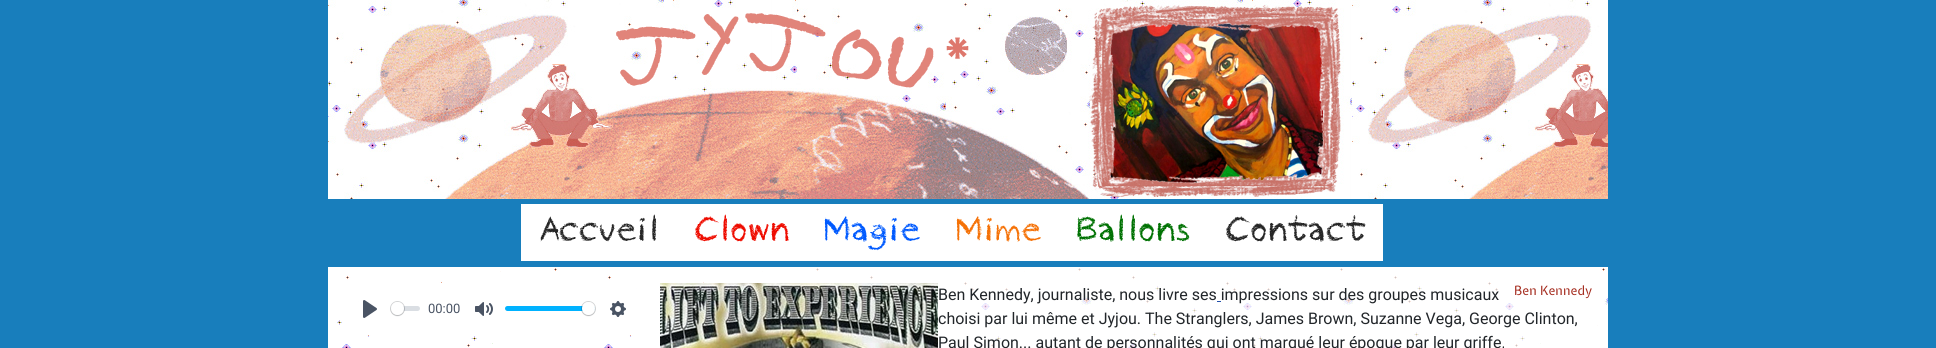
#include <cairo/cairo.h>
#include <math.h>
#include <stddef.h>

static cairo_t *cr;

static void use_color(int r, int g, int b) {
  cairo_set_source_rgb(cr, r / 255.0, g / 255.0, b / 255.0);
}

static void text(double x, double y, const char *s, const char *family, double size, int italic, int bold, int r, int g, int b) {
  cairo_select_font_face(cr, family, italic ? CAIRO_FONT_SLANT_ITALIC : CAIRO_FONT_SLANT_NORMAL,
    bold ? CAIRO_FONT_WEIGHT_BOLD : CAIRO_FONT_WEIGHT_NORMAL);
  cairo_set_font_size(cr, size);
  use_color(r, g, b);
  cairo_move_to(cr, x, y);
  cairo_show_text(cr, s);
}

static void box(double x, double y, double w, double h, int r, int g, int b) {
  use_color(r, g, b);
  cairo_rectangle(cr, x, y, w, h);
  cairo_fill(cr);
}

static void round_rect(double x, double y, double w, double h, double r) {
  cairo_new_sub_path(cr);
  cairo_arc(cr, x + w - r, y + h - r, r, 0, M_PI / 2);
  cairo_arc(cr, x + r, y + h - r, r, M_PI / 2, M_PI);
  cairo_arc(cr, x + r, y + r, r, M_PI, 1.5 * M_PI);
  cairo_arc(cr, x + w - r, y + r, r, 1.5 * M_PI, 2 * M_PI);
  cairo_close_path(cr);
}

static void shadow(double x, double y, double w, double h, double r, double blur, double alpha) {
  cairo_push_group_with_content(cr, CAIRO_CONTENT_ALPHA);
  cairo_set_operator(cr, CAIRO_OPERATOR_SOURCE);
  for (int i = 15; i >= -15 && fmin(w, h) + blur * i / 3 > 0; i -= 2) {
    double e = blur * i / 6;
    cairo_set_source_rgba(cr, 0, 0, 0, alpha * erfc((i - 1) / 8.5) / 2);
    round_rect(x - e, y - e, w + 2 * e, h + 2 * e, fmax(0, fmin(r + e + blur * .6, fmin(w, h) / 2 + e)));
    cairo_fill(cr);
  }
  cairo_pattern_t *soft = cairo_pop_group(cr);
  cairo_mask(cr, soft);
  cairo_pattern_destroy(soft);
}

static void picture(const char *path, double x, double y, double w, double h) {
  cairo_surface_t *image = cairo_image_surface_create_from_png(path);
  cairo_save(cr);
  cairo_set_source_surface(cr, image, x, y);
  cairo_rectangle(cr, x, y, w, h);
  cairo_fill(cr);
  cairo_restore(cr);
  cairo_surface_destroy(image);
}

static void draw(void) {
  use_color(24, 126, 188);
  cairo_paint(cr);
  picture("img_01.png", 328, 0, 1280, 199);
  picture("img_02.png", 616, 13, 353, 75);
  box(521, 204, 862, 57, 255, 255, 255);
  picture("img_03.png", 540, 214, 117, 28);
  picture("img_04.png", 695, 214, 94, 28);
  picture("img_05.png", 824, 216, 96, 35);
  picture("img_06.png", 956, 216, 85, 26);
  picture("img_07.png", 1077, 214, 113, 28);
  picture("img_08.png", 1226, 215, 140, 27);
  box(328, 267, 1280, 81, 255, 255, 255);
  picture("img_09.png", 337, 268, 1271, 80);
  box(359, 283, 277, 52, 255, 255, 255);
  picture("img_10.png", 363, 300, 14, 18);
  cairo_set_source_rgba(cr, 0.757, 0.784, 0.82, 0.6);
  round_rect(391, 306, 29, 5, 2.5);
  cairo_fill(cr);
  cairo_arc(cr, 397.5, 308.5, 7, 0, 2 * M_PI);
  cairo_set_source_rgba(cr, 0.137, 0.157, 0.184, 0.2);
  cairo_set_line_width(cr, 1);
  cairo_stroke(cr);
  use_color(35, 40, 47);
  shadow(391, 303, 13, 13, 6.5, 0.5, 0.15);
  use_color(255, 255, 255);
  cairo_arc(cr, 397.5, 308.5, 6.5, 0, 2 * M_PI);
  cairo_fill(cr);
  picture("img_11.png", 475, 302, 18, 14);
  use_color(0, 178, 255);
  round_rect(505, 306, 90, 5, 2.5);
  cairo_fill(cr);
  cairo_arc(cr, 588.5, 308.5, 7, 0, 2 * M_PI);
  cairo_set_source_rgba(cr, 0.137, 0.157, 0.184, 0.2);
  cairo_stroke(cr);
  use_color(35, 40, 47);
  shadow(582, 303, 13, 13, 6.5, 0.5, 0.15);
  use_color(255, 255, 255);
  cairo_arc(cr, 588.5, 308.5, 6.5, 0, 2 * M_PI);
  cairo_fill(cr);
  picture("img_12.png", 610, 301, 16, 16);
  cairo_set_source_rgba(cr, 1, 1, 1, 0.7);
  cairo_rectangle(cr, 668, 268, 881, 80);
  cairo_fill(cr);
  picture("img_13.png", 660, 283, 278, 65);
  text(428, 313, "00:00", "Roboto", 13, 0, 0, 74, 84, 100);
  text(1514, 295, "Ben Kennedy", "Expletus Sans", 12.75, 0, 0, 165, 45, 32);
  text(938, 300, "Ben Kennedy, journaliste, nous livre ses impressions sur des groupes musicaux", "Roboto", 16, 0, 0, 34, 38, 42);
  box(1217, 301, 4, 1, 34, 79, 170);
  text(938, 324, "choisi par lui même et Jyjou. The Stranglers, James Brown, Suzanne Vega, George Clinton,", "Roboto", 16, 0, 0, 34, 38, 42);
  text(938, 348, "Paul Simon... autant de personnalités qui ont marqué leur époque par leur griffe.", "Roboto", 16, 0, 0, 34, 38, 42);
}

int main(void) {
  cairo_surface_t *surface = cairo_image_surface_create(CAIRO_FORMAT_RGB24, 1936, 348);
  cr = cairo_create(surface);
  cairo_font_options_t *options = cairo_font_options_create();
  cairo_font_options_set_hint_metrics(options, CAIRO_HINT_METRICS_OFF);
  cairo_font_options_set_hint_style(options, CAIRO_HINT_STYLE_NONE);
  cairo_set_font_options(cr, options);
  cairo_set_miter_limit(cr, 4);
  draw();
  cairo_surface_write_to_png(surface, "out.png");
  cairo_font_options_destroy(options);
  cairo_destroy(cr);
  cairo_surface_destroy(surface);
  return 0;
}
